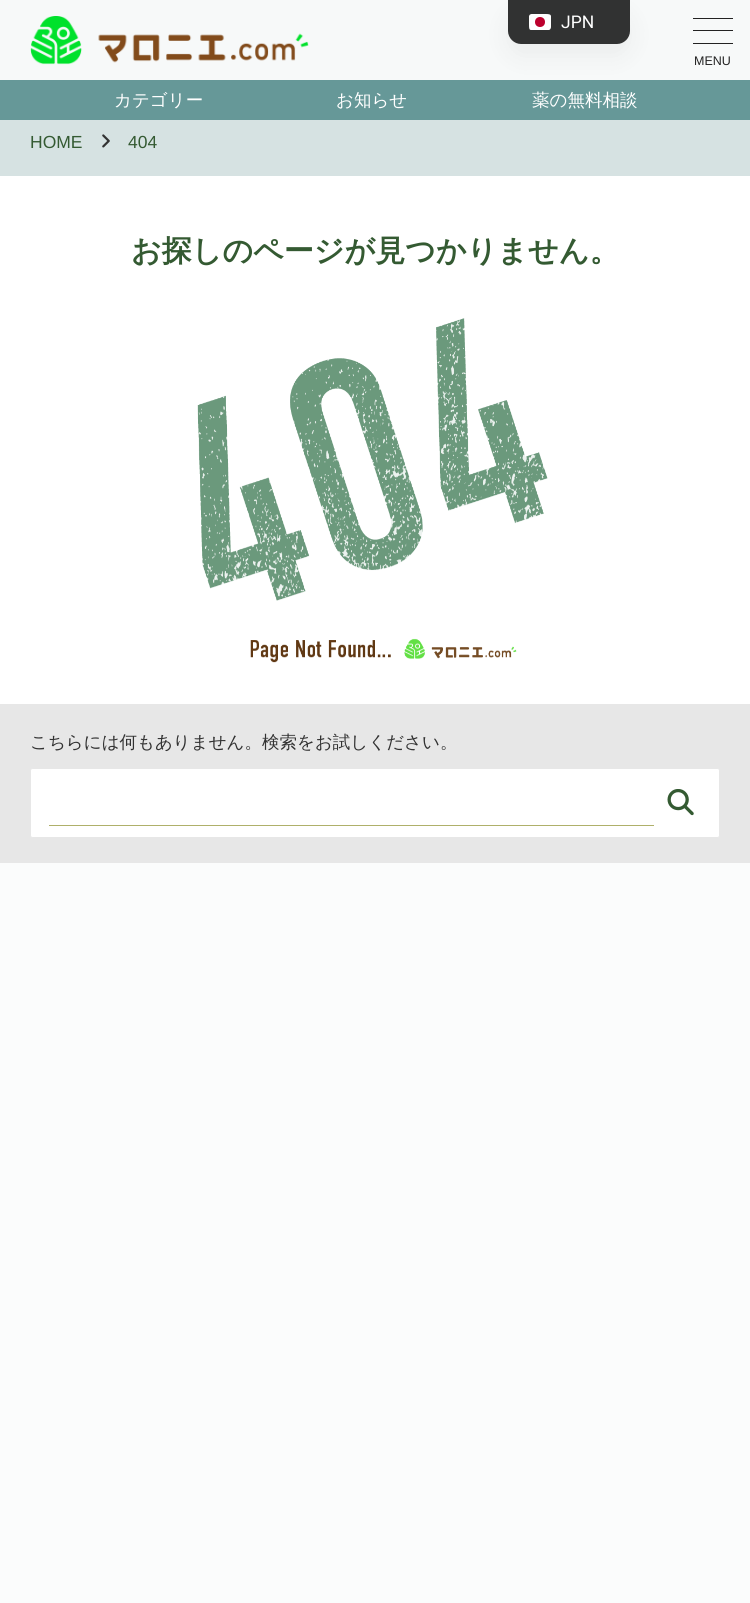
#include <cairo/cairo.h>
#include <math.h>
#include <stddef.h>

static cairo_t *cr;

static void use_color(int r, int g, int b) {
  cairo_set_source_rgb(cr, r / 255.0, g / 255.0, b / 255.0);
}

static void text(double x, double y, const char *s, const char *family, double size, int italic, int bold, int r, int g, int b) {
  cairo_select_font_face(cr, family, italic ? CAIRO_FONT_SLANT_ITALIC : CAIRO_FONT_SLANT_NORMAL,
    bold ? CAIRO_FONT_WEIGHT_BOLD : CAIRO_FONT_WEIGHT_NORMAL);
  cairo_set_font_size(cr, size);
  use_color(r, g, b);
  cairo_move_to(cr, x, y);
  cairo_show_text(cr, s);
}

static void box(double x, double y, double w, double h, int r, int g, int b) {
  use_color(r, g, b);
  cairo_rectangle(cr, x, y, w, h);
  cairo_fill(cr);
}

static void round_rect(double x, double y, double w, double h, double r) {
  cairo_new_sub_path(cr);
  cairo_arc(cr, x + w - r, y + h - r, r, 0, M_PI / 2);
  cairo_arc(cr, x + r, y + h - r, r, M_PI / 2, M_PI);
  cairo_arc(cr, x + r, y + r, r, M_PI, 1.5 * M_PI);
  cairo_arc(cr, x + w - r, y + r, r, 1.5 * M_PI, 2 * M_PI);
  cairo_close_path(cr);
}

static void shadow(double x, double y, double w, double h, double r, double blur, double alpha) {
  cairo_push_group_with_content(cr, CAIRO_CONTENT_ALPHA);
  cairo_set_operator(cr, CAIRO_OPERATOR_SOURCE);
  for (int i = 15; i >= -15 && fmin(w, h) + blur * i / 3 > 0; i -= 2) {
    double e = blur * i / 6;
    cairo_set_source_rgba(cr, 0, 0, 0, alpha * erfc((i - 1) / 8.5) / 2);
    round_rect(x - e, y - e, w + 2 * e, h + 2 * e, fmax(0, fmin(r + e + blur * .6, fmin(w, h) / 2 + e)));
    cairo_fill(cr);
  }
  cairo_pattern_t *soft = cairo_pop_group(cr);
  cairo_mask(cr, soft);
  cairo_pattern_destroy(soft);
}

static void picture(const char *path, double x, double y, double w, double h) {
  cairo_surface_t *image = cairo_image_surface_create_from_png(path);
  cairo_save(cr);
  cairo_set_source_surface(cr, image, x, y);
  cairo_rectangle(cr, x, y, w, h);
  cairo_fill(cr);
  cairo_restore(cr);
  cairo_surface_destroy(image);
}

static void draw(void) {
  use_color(214, 226, 226);
  cairo_paint(cr);
  box(0, 0, 750, 80, 247, 249, 249);
  box(0, 80, 750, 40, 102, 152, 152);
  cairo_save(cr);
  cairo_set_fill_rule(cr, CAIRO_FILL_RULE_EVEN_ODD);
  cairo_new_path(cr);
  cairo_move_to(cr, 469, 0);
  cairo_line_to(cr, 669, 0);
  cairo_line_to(cr, 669, 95);
  cairo_line_to(cr, 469, 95);
  cairo_close_path(cr);
  cairo_move_to(cr, 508, 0);
  cairo_line_to(cr, 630, 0);
  cairo_line_to(cr, 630, 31);
  cairo_curve_to(cr, 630, 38, 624, 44, 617, 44);
  cairo_line_to(cr, 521, 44);
  cairo_curve_to(cr, 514, 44, 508, 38, 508, 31);
  cairo_close_path(cr);
  cairo_clip(cr);
  use_color(0, 0, 0);
  shadow(508, 13, 122, 43, 13, 12.5, 0.05);
  cairo_restore(cr);
  cairo_set_source_rgba(cr, 0, 0, 0, 0.8);
  cairo_new_path(cr);
  cairo_move_to(cr, 508, 0);
  cairo_line_to(cr, 630, 0);
  cairo_line_to(cr, 630, 31);
  cairo_curve_to(cr, 630, 38, 624, 44, 617, 44);
  cairo_line_to(cr, 521, 44);
  cairo_curve_to(cr, 514, 44, 508, 38, 508, 31);
  cairo_close_path(cr);
  cairo_fill(cr);
  cairo_save(cr);
  cairo_rectangle(cr, 529, 14, 22, 16);
  cairo_clip(cr);
  use_color(255, 255, 255);
  cairo_new_path(cr);
  cairo_move_to(cr, 531.5, 14);
  cairo_line_to(cr, 545.5, 14);
  cairo_curve_to(cr, 552.5, 14, 551, 15.5, 551, 22);
  cairo_curve_to(cr, 551, 24, 552, 30, 548.5, 30);
  cairo_line_to(cr, 537, 30);
  cairo_curve_to(cr, 529.5, 30, 529, 31.5, 529, 24);
  cairo_curve_to(cr, 529, 21.5, 528, 16, 530, 14.5);
  cairo_close_path(cr);
  cairo_fill(cr);
  cairo_restore(cr);
  use_color(188, 0, 45);
  cairo_arc(cr, 540, 22, 5, 0, 2 * M_PI);
  cairo_fill(cr);
  box(693, 18, 40, 1, 34, 34, 34);
  box(693, 30, 40, 1, 34, 34, 34);
  box(693, 43, 40, 1, 34, 34, 34);
  picture("img_01.png", 30, 16, 279, 49);
  picture("img_02.png", 102, 134, 8, 14);
  box(0, 176, 750, 528, 255, 255, 255);
  picture("img_03.png", 197, 318, 351, 345);
  box(0, 704, 750, 159, 231, 231, 231);
  use_color(255, 255, 255);
  round_rect(30.5, 768.5, 689, 69, 2);
  cairo_fill_preserve(cr);
  use_color(231, 231, 231);
  cairo_set_line_width(cr, 1);
  cairo_stroke(cr);
  picture("img_04.png", 667, 789, 27, 27);
  box(49, 825, 605, 1, 175, 176, 106);
  box(0, 863, 750, 740, 251, 252, 252);
  text(561, 28, "JPN", "Roboto", 17.5, 0, 0, 255, 255, 255);
  text(694, 65, "MENU", "Liberation Sans", 12.5, 0, 0, 34, 34, 34);
  text(114, 106, "カテゴリー", "WenQuanYi Zen Hei Medium", 17.5, 0, 0, 255, 255, 255);
  text(336, 106, "お知らせ", "WenQuanYi Zen Hei Medium", 17.5, 0, 0, 255, 255, 255);
  text(532, 106, "薬の無料相談", "WenQuanYi Zen Hei Medium", 17.5, 0, 0, 255, 255, 255);
  text(30, 148, "HOME", "Liberation Sans", 17.5, 0, 0, 52, 90, 50);
  text(128, 148, "404", "Liberation Sans", 17.5, 0, 0, 52, 90, 50);
  text(131, 261, "お探しのページが見つかりません。", "WenQuanYi Zen Hei", 30, 0, 1, 52, 90, 50);
  text(30, 748, "こちらには何もありません。検索をお試しください。", "WenQuanYi Zen Hei Medium", 17.5, 0, 0, 50, 50, 50);
}

int main(void) {
  cairo_surface_t *surface = cairo_image_surface_create(CAIRO_FORMAT_RGB24, 750, 1603);
  cr = cairo_create(surface);
  cairo_font_options_t *options = cairo_font_options_create();
  cairo_font_options_set_hint_metrics(options, CAIRO_HINT_METRICS_OFF);
  cairo_font_options_set_hint_style(options, CAIRO_HINT_STYLE_NONE);
  cairo_set_font_options(cr, options);
  cairo_set_miter_limit(cr, 4);
  draw();
  cairo_surface_write_to_png(surface, "out.png");
  cairo_font_options_destroy(options);
  cairo_destroy(cr);
  cairo_surface_destroy(surface);
  return 0;
}
